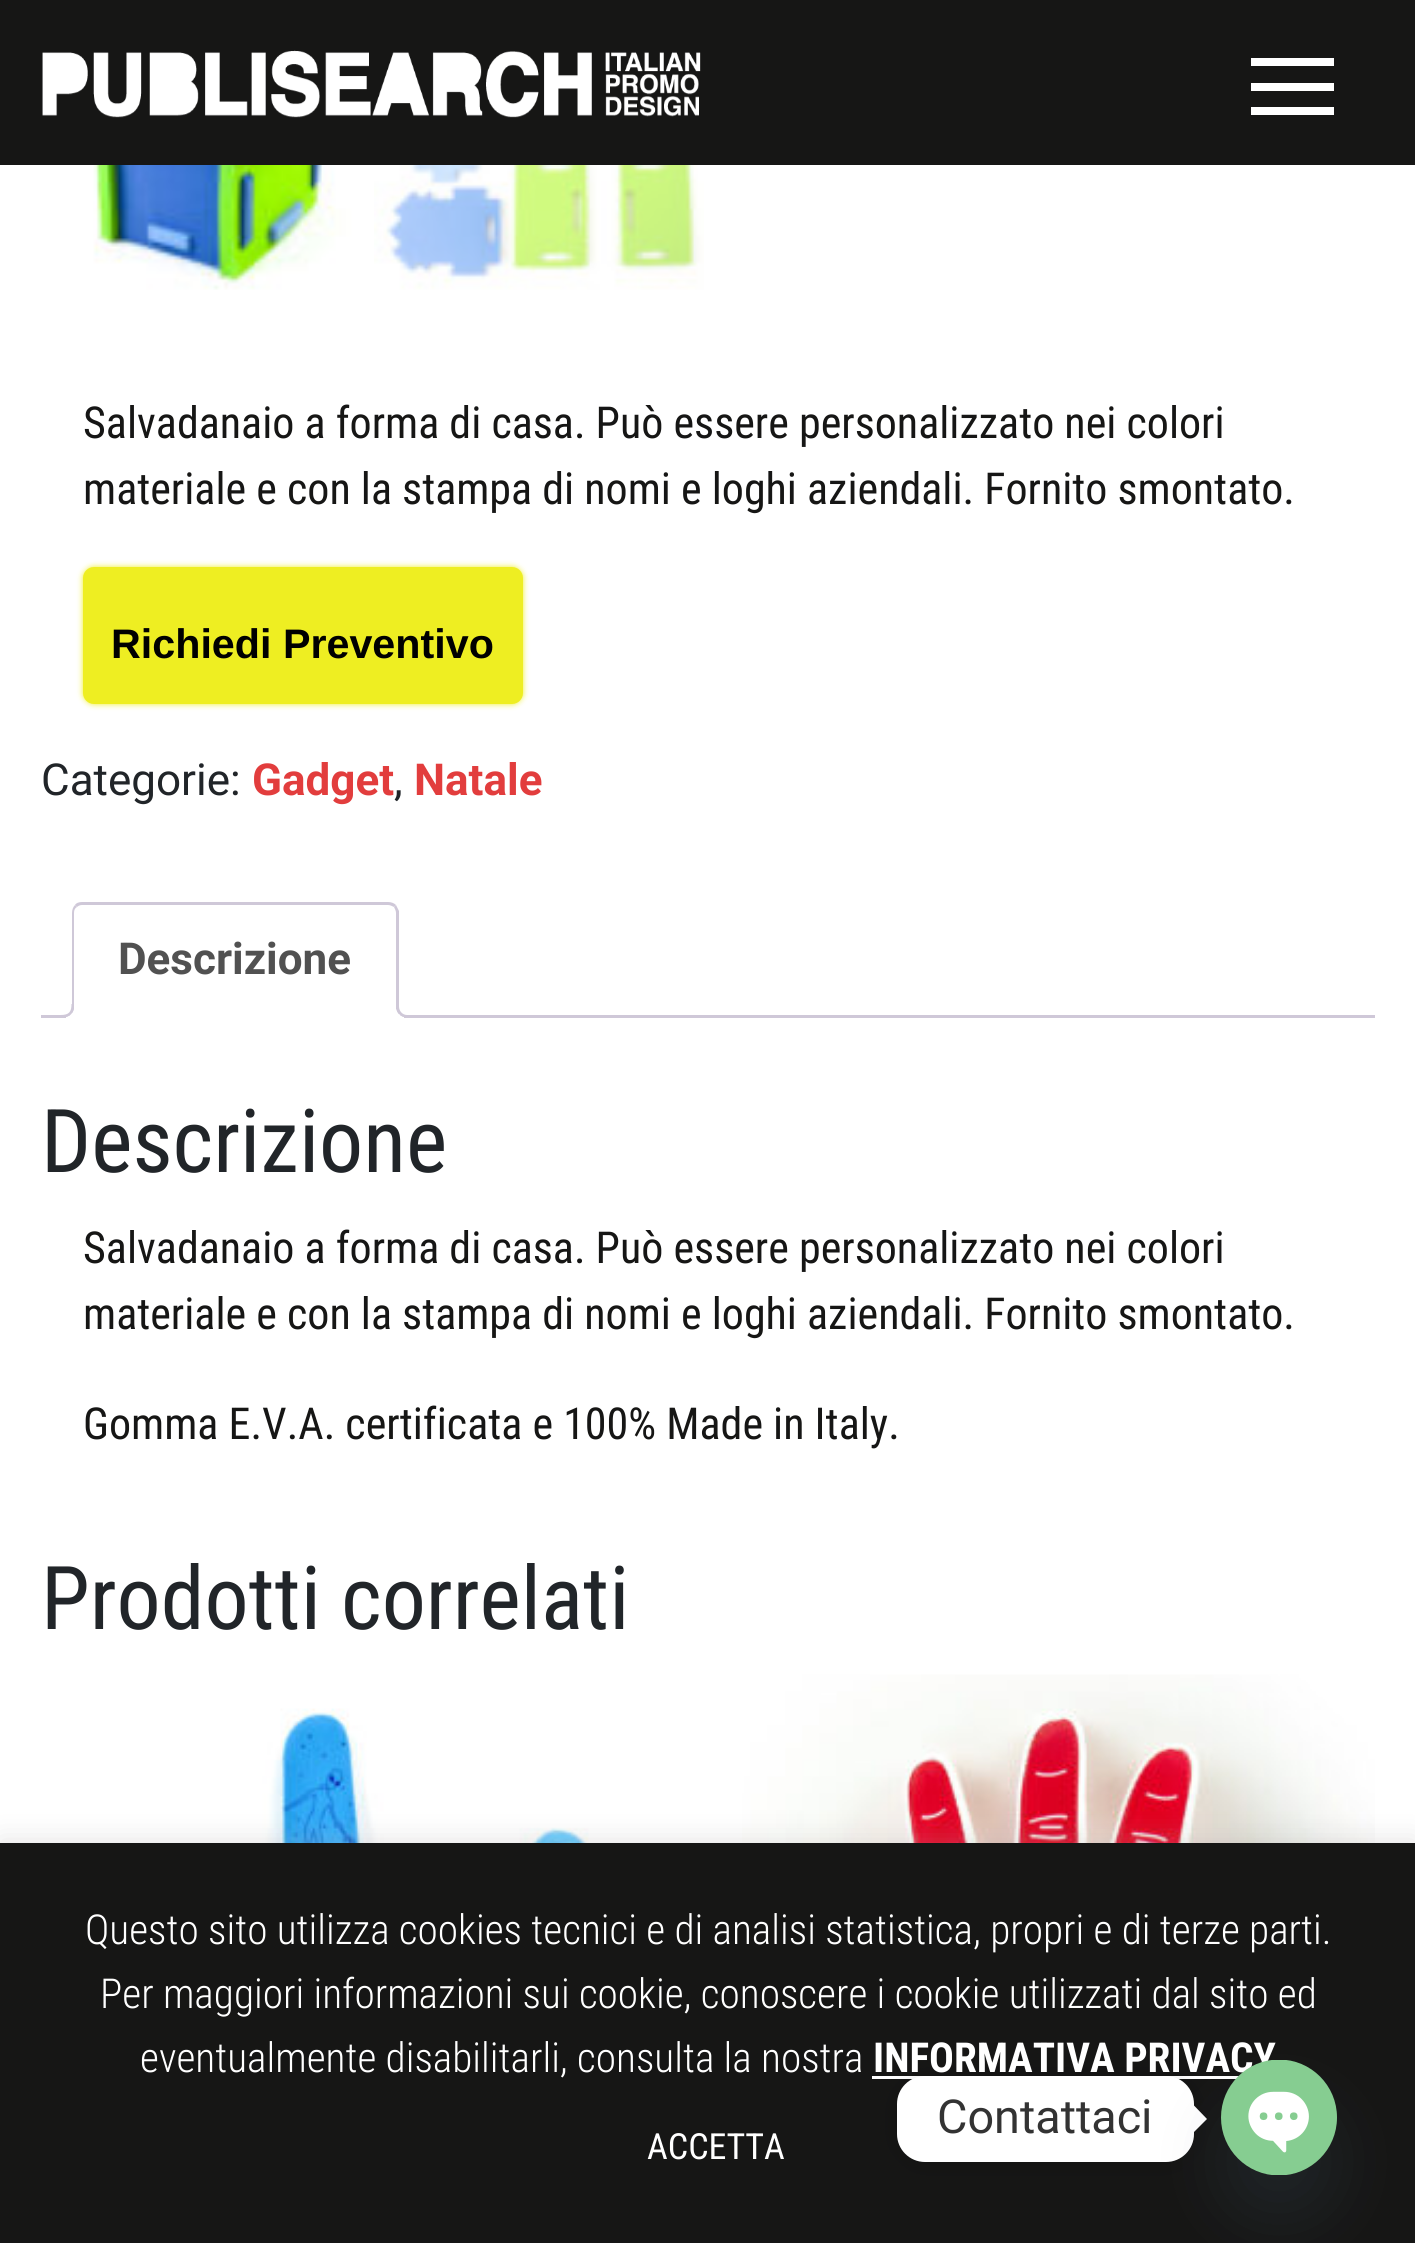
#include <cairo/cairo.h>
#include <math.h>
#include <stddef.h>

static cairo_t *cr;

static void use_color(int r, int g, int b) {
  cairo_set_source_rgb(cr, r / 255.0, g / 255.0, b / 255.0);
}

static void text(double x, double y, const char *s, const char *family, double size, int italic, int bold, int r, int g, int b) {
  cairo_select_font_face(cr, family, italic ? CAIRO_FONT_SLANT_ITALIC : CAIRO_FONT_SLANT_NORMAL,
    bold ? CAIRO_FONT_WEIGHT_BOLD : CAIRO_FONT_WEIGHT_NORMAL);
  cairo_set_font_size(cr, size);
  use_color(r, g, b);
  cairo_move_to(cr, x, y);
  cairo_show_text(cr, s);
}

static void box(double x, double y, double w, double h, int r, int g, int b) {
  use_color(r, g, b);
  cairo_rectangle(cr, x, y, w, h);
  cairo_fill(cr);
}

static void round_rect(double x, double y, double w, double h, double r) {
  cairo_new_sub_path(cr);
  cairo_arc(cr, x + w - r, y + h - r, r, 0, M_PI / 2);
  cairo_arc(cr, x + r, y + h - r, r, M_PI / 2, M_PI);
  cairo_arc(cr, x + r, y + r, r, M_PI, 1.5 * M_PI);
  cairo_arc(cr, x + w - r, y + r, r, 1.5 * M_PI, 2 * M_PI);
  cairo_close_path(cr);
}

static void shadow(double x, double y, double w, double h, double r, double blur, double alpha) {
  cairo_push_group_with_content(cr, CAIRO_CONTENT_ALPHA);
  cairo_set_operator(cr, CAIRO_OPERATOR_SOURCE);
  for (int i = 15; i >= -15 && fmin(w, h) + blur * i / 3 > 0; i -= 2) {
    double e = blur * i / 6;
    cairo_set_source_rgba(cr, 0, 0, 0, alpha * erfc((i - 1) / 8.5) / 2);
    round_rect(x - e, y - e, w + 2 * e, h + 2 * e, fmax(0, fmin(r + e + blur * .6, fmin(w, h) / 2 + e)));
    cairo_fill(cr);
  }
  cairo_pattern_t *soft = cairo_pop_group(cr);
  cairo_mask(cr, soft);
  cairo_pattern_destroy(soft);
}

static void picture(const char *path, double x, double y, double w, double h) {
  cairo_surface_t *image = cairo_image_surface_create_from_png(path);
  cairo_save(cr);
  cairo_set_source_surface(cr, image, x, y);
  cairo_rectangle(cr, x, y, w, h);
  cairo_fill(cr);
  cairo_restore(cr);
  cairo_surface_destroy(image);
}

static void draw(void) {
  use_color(255, 255, 255);
  cairo_paint(cr);
  box(0, 0, 1415, 165, 22, 22, 21);
  picture("img_01.png", 42, 50, 659, 68);
  box(1251, 58, 83, 8, 255, 255, 255);
  box(1251, 83, 83, 8, 255, 255, 255);
  box(1251, 107, 83, 8, 255, 255, 255);
  picture("img_02.png", 67, 165, 294, 125);
  picture("img_03.png", 374, 165, 330, 125);
  use_color(238, 238, 34);
  shadow(83, 567, 440, 137, 11, 3, 1);
  use_color(238, 238, 34);
  round_rect(86, 570, 434, 131, 8);
  cairo_fill_preserve(cr);
  cairo_set_line_width(cr, 6);
  cairo_stroke(cr);
  box(41, 1015, 1334, 3, 207, 200, 216);
  use_color(255, 255, 255);
  cairo_new_path(cr);
  cairo_move_to(cr, 83, 902);
  cairo_line_to(cr, 388, 902);
  cairo_curve_to(cr, 394, 902, 399, 907, 399, 913);
  cairo_line_to(cr, 399, 1018);
  cairo_line_to(cr, 72, 1018);
  cairo_line_to(cr, 72, 913);
  cairo_curve_to(cr, 72, 907, 77, 902, 83, 902);
  cairo_close_path(cr);
  cairo_fill(cr);
  use_color(207, 200, 216);
  cairo_new_path(cr);
  cairo_move_to(cr, 82, 902);
  cairo_curve_to(cr, 79, 902, 76, 903, 75, 905);
  cairo_line_to(cr, 77, 907);
  cairo_curve_to(cr, 78, 906, 80, 905, 82, 905);
  cairo_line_to(cr, 388, 905);
  cairo_curve_to(cr, 390, 905, 392, 906, 394, 907);
  cairo_line_to(cr, 396, 905);
  cairo_curve_to(cr, 394, 903, 391, 902, 388, 902);
  cairo_close_path(cr);
  cairo_fill(cr);
  cairo_new_path(cr);
  cairo_move_to(cr, 396, 905);
  cairo_curve_to(cr, 397, 907, 398, 909, 399, 911);
  cairo_line_to(cr, 399, 1018);
  cairo_line_to(cr, 396, 1015);
  cairo_line_to(cr, 396, 913);
  cairo_curve_to(cr, 396, 911, 395, 909, 394, 907);
  cairo_close_path(cr);
  cairo_fill(cr);
  use_color(255, 255, 255);
  cairo_new_path(cr);
  cairo_move_to(cr, 399, 1018);
  cairo_line_to(cr, 72, 1018);
  cairo_line_to(cr, 74, 1015);
  cairo_line_to(cr, 396, 1015);
  cairo_close_path(cr);
  cairo_fill(cr);
  use_color(207, 200, 216);
  cairo_new_path(cr);
  cairo_move_to(cr, 75, 905);
  cairo_curve_to(cr, 73, 907, 72, 910, 72, 913);
  cairo_line_to(cr, 72, 1017);
  cairo_line_to(cr, 74, 1015);
  cairo_line_to(cr, 74, 913);
  cairo_curve_to(cr, 74, 910, 75, 908, 77, 907);
  cairo_close_path(cr);
  cairo_fill(cr);
  cairo_save(cr);
  cairo_rectangle(cr, 41, 902, 1334, 116);
  cairo_clip(cr);
  use_color(255, 255, 255);
  cairo_new_path(cr);
  cairo_move_to(cr, 66, 1017);
  cairo_line_to(cr, 66, 1023);
  cairo_line_to(cr, 69, 1023);
  cairo_curve_to(cr, 75, 1023, 80, 1018, 80, 1012);
  cairo_line_to(cr, 80, 1009);
  cairo_line_to(cr, 74, 1009);
  cairo_curve_to(cr, 73, 1013, 70, 1016, 66, 1017);
  cairo_close_path(cr);
  cairo_fill(cr);
  cairo_restore(cr);
  cairo_set_fill_rule(cr, CAIRO_FILL_RULE_EVEN_ODD);
  cairo_new_path(cr);
  cairo_move_to(cr, 60.5, 1004);
  cairo_line_to(cr, 74, 1004);
  cairo_curve_to(cr, 74, 1013.5, 70.5, 1017.5, 60.5, 1017.5);
  cairo_close_path(cr);
  cairo_move_to(cr, 60.5, 1004);
  cairo_line_to(cr, 71.5, 1004);
  cairo_curve_to(cr, 71.5, 1012, 69, 1015, 60.5, 1015);
  cairo_close_path(cr);
  cairo_fill(cr);
  cairo_save(cr);
  cairo_set_fill_rule(cr, CAIRO_FILL_RULE_WINDING);
  cairo_rectangle(cr, 41, 902, 1334, 116);
  cairo_clip(cr);
  use_color(255, 255, 255);
  cairo_new_path(cr);
  cairo_move_to(cr, 391, 1009);
  cairo_line_to(cr, 391, 1014);
  cairo_curve_to(cr, 392.5, 1021, 398, 1023, 404, 1023);
  cairo_line_to(cr, 404, 1017);
  cairo_curve_to(cr, 400, 1016, 397, 1013, 396.5, 1009);
  cairo_close_path(cr);
  cairo_fill(cr);
  cairo_restore(cr);
  cairo_new_path(cr);
  cairo_move_to(cr, 396, 1004);
  cairo_line_to(cr, 410, 1004);
  cairo_line_to(cr, 410, 1017.5);
  cairo_line_to(cr, 407, 1017.5);
  cairo_curve_to(cr, 401, 1017.5, 396, 1012.5, 396, 1006.5);
  cairo_close_path(cr);
  cairo_move_to(cr, 399, 1004);
  cairo_line_to(cr, 410, 1004);
  cairo_line_to(cr, 410, 1015);
  cairo_line_to(cr, 407, 1015);
  cairo_curve_to(cr, 402.5, 1015, 399, 1011, 399, 1006.5);
  cairo_close_path(cr);
  cairo_fill(cr);
  picture("img_04.png", 127, 1708, 462, 135);
  picture("img_05.png", 742, 1674, 633, 169);
  use_color(172, 171, 171);
  shadow(0, 1840, 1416, 401, 0, 14, 0.3);
  box(0, 1843, 1415, 400, 22, 22, 21);
  box(872, 2076, 367, 3, 255, 255, 255);
  use_color(0, 0, 0);
  shadow(897, 2079, 297, 85, 28, 10.5, 0.15);
  use_color(255, 255, 255);
  round_rect(897, 2076, 297, 86, 28);
  cairo_fill(cr);
  cairo_set_fill_rule(cr, CAIRO_FILL_RULE_WINDING);
  cairo_new_path(cr);
  cairo_move_to(cr, 1193.5, 2132.5);
  cairo_line_to(cr, 1193.5, 2105);
  cairo_line_to(cr, 1207, 2119);
  cairo_close_path(cr);
  cairo_fill(cr);
  use_color(73, 104, 126);
  shadow(1221, 2104, 116, 115, 57.5, 33, 0.16);
  text(83, 438, "Salvadanaio a forma di casa. Può essere personalizzato nei colori", "Roboto Condensed", 44, 0, 0, 22, 22, 21);
  text(83, 504, "materiale e con la stampa di nomi e loghi aziendali. Fornito smontato.", "Roboto Condensed", 44, 0, 0, 22, 22, 21);
  text(111, 658, "Richiedi Preventivo", "Liberation Sans", 41.25, 0, 1, 0, 0, 0);
  text(41, 795, "Categorie:", "Roboto", 44, 0, 0, 33, 37, 41);
  text(252, 795, "Gadget", "Roboto", 44, 0, 1, 226, 61, 61);
  text(394, 795, ",", "Roboto", 44, 0, 0, 33, 37, 41);
  text(414, 795, "Natale", "Roboto", 44, 0, 1, 226, 61, 61);
  text(118, 974, "Descrizione", "Roboto", 44, 0, 1, 81, 81, 81);
  text(41, 1172, "Descrizione", "Roboto Condensed", 88, 0, 0, 33, 37, 41);
  text(83, 1263, "Salvadanaio a forma di casa. Può essere personalizzato nei colori", "Roboto Condensed", 44, 0, 0, 22, 22, 21);
  text(83, 1329, "materiale e con la stampa di nomi e loghi aziendali. Fornito smontato.", "Roboto Condensed", 44, 0, 0, 22, 22, 21);
  text(83, 1439, "Gomma E.V.A. certificata e 100% Made in Italy.", "Roboto Condensed", 44, 0, 0, 22, 22, 21);
  text(41, 1629, "Prodotti correlati", "Roboto Condensed", 88, 0, 0, 33, 37, 41);
  text(85, 1944, "Questo sito utilizza cookies tecnici e di analisi statistica, propri e di terze parti.", "Roboto Condensed Light", 41.25, 0, 0, 255, 255, 255);
  text(100, 2008, "Per maggiori informazioni sui cookie, conoscere i cookie utilizzati dal sito ed", "Roboto Condensed Light", 41.25, 0, 0, 255, 255, 255);
  text(140, 2072, "eventualmente disabilitarli, consulta la nostra", "Roboto Condensed Light", 41.25, 0, 0, 255, 255, 255);
  text(873, 2072, "INFORMATIVA PRIVACY", "Roboto Condensed", 41.25, 0, 1, 255, 255, 255);
  text(647, 2159, "ACCETTA", "Roboto Condensed", 36, 0, 0, 255, 255, 255);
  text(937, 2133, "Contattaci", "Roboto", 46.75, 0, 0, 51, 51, 51);
  picture("img_06.png", 1221, 2060, 116, 115);
}

int main(void) {
  cairo_surface_t *surface = cairo_image_surface_create(CAIRO_FORMAT_RGB24, 1415, 2243);
  cr = cairo_create(surface);
  cairo_font_options_t *options = cairo_font_options_create();
  cairo_font_options_set_hint_metrics(options, CAIRO_HINT_METRICS_OFF);
  cairo_font_options_set_hint_style(options, CAIRO_HINT_STYLE_NONE);
  cairo_set_font_options(cr, options);
  cairo_set_miter_limit(cr, 4);
  draw();
  cairo_surface_write_to_png(surface, "out.png");
  cairo_font_options_destroy(options);
  cairo_destroy(cr);
  cairo_surface_destroy(surface);
  return 0;
}
